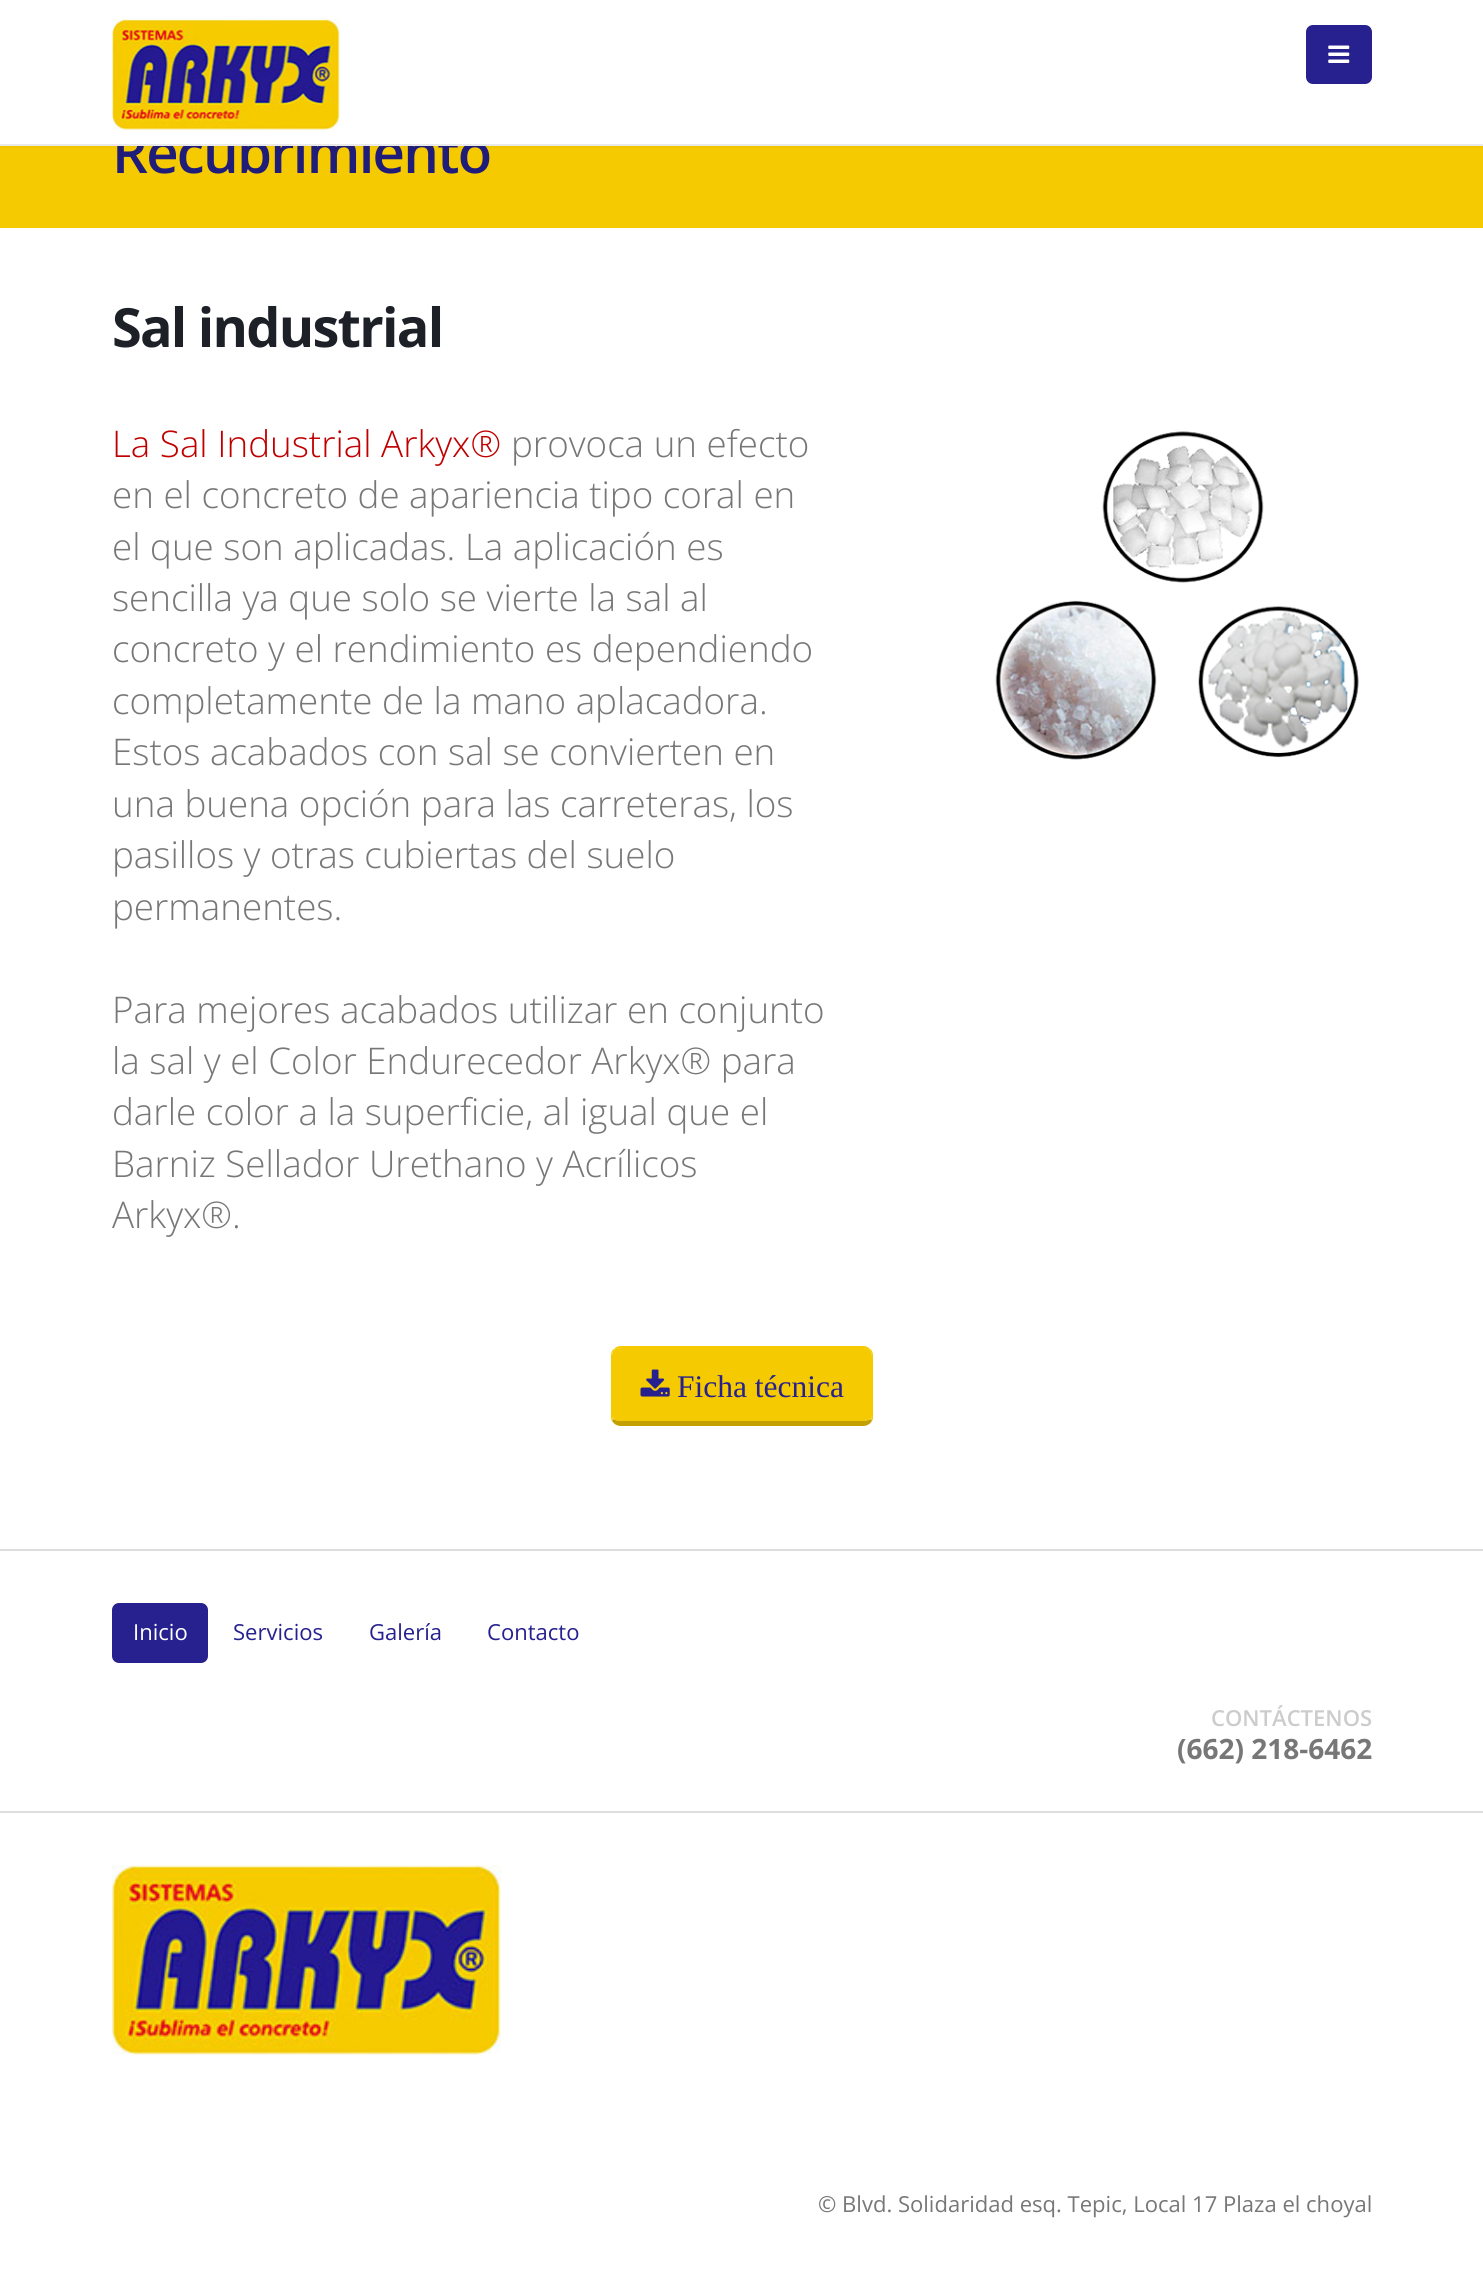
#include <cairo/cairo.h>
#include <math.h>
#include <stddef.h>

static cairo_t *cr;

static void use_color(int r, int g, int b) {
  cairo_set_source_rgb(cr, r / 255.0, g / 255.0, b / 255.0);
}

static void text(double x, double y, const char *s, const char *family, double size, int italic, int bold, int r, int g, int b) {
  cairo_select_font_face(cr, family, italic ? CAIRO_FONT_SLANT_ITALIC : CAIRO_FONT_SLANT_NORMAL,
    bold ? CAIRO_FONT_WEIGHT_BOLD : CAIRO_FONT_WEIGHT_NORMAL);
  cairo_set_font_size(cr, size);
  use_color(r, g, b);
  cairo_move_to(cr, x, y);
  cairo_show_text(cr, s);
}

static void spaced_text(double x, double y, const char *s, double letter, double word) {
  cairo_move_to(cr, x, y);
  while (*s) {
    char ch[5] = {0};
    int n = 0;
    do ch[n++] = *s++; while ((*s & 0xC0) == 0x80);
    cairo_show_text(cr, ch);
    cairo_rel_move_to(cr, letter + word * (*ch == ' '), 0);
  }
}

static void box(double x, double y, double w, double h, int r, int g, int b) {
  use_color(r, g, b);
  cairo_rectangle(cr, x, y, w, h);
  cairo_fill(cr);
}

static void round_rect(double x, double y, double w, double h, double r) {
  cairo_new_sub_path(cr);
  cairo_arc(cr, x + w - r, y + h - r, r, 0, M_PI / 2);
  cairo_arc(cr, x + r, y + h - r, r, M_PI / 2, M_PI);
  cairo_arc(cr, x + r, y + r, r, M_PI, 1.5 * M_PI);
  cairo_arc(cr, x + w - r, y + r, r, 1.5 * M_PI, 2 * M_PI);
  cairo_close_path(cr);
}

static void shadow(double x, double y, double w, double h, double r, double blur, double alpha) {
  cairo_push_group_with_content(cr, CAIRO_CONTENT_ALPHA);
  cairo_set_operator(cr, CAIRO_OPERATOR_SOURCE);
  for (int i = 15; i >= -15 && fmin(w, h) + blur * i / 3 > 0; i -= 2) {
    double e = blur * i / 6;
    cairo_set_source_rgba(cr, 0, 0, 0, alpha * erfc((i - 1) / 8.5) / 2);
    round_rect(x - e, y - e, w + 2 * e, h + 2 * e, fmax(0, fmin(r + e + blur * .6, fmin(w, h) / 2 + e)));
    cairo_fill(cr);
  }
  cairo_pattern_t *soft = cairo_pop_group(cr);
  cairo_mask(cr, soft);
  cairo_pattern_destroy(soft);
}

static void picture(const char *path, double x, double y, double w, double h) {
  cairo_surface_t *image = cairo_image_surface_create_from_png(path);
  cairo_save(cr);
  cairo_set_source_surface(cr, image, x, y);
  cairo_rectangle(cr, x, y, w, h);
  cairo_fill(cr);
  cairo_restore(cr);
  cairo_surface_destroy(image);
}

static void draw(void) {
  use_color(255, 255, 255);
  cairo_paint(cr);
  box(0, 146, 1483, 82, 245, 202, 0);
  use_color(0, 0, 0);
  shadow(0, -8, 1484, 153, 0, 2.5, 0.1);
  picture("img_03.png", 995, 431, 364, 329);
  use_color(245, 202, 0);
  cairo_new_path(cr);
  cairo_move_to(cr, 621, 1348);
  cairo_line_to(cr, 863, 1348);
  cairo_curve_to(cr, 868, 1348, 872, 1351, 872, 1356);
  cairo_line_to(cr, 872, 1416);
  cairo_curve_to(cr, 872, 1419, 868, 1421, 863, 1421);
  cairo_line_to(cr, 621, 1421);
  cairo_curve_to(cr, 616, 1421, 612, 1419, 612, 1416);
  cairo_line_to(cr, 612, 1356);
  cairo_curve_to(cr, 612, 1351, 616, 1348, 621, 1348);
  cairo_close_path(cr);
  cairo_fill(cr);
  cairo_new_path(cr);
  cairo_move_to(cr, 621, 1346);
  cairo_curve_to(cr, 618, 1346, 616, 1347, 614, 1349);
  cairo_line_to(cr, 615, 1350);
  cairo_curve_to(cr, 617, 1349, 619, 1348, 621, 1348);
  cairo_line_to(cr, 863, 1348);
  cairo_curve_to(cr, 865, 1348, 867, 1349, 869, 1350);
  cairo_line_to(cr, 870, 1349);
  cairo_curve_to(cr, 868, 1347, 866, 1346, 863, 1346);
  cairo_close_path(cr);
  cairo_fill(cr);
  cairo_new_path(cr);
  cairo_move_to(cr, 872, 1421);
  cairo_curve_to(cr, 873, 1420, 873, 1418, 873, 1416);
  cairo_line_to(cr, 873, 1356);
  cairo_curve_to(cr, 873, 1353, 872, 1350, 870, 1349);
  cairo_line_to(cr, 869, 1350);
  cairo_curve_to(cr, 870, 1351, 871, 1352, 872, 1354);
  cairo_line_to(cr, 872, 1416);
  cairo_line_to(cr, 871, 1419);
  cairo_close_path(cr);
  cairo_fill(cr);
  use_color(194, 160, 0);
  cairo_new_path(cr);
  cairo_move_to(cr, 872, 1421);
  cairo_curve_to(cr, 870, 1424, 867, 1426, 863, 1426);
  cairo_line_to(cr, 621, 1426);
  cairo_curve_to(cr, 617, 1426, 614, 1424, 612, 1421);
  cairo_line_to(cr, 613, 1419);
  cairo_curve_to(cr, 615, 1420, 618, 1421, 621, 1421);
  cairo_line_to(cr, 863, 1421);
  cairo_curve_to(cr, 866, 1421, 869, 1420, 871, 1419);
  cairo_close_path(cr);
  cairo_fill(cr);
  use_color(245, 202, 0);
  cairo_new_path(cr);
  cairo_move_to(cr, 614, 1349);
  cairo_curve_to(cr, 612, 1350, 611, 1353, 611, 1356);
  cairo_line_to(cr, 611, 1416);
  cairo_curve_to(cr, 611, 1418, 611, 1420, 612, 1421);
  cairo_line_to(cr, 613, 1419);
  cairo_line_to(cr, 612, 1416);
  cairo_line_to(cr, 612, 1354);
  cairo_curve_to(cr, 613, 1352, 614, 1351, 615, 1350);
  cairo_close_path(cr);
  cairo_fill(cr);
  picture("img_04.png", 640, 1369, 30, 28);
  box(0, 1549, 1483, 2, 221, 221, 221);
  use_color(38, 33, 143);
  round_rect(112, 1603, 96, 60, 7);
  cairo_fill(cr);
  box(0, 1811, 1483, 2, 221, 221, 221);
  picture("img_05.png", 112, 1865, 389, 190);
  cairo_select_font_face(cr, "Open Sans SemiBold", CAIRO_FONT_SLANT_NORMAL, CAIRO_FONT_WEIGHT_NORMAL);
  cairo_set_font_size(cr, 56.25);
  use_color(32, 28, 122);
  spaced_text(112, 173, "Recubrimiento", -1.75, 0);
  box(0, 0, 1483, 144, 255, 255, 255);
  picture("img_01.png", 112, 19, 228, 111);
  use_color(38, 33, 143);
  round_rect(1306, 25, 66, 59, 7);
  cairo_fill(cr);
  picture("img_02.png", 1328, 45, 22, 18);
  box(0, 144, 1483, 2, 233, 233, 233);
  cairo_select_font_face(cr, "Open Sans", CAIRO_FONT_SLANT_NORMAL, CAIRO_FONT_WEIGHT_BOLD);
  cairo_set_font_size(cr, 54);
  use_color(29, 33, 39);
  spaced_text(112, 347, "Sal industrial", -1.75, 0);
  text(112, 457, "La Sal Industrial Arkyx®", "Open Sans Light", 36.75, 0, 0, 192, 0, 0);
  text(511, 457, "provoca un efecto", "Open Sans Light", 36.75, 0, 0, 119, 119, 119);
  text(112, 508, "en el concreto de apariencia tipo coral en", "Open Sans Light", 36.75, 0, 0, 119, 119, 119);
  text(112, 560, "el que son aplicadas. La aplicación es", "Open Sans Light", 36.75, 0, 0, 119, 119, 119);
  text(112, 611, "sencilla ya que solo se vierte la sal al", "Open Sans Light", 36.75, 0, 0, 119, 119, 119);
  text(112, 662, "concreto y el rendimiento es dependiendo", "Open Sans Light", 36.75, 0, 0, 119, 119, 119);
  text(112, 714, "completamente de la mano aplacadora.", "Open Sans Light", 36.75, 0, 0, 119, 119, 119);
  text(112, 765, "Estos acabados con sal se convierten en", "Open Sans Light", 36.75, 0, 0, 119, 119, 119);
  text(112, 817, "una buena opción para las carreteras, los", "Open Sans Light", 36.75, 0, 0, 119, 119, 119);
  text(112, 868, "pasillos y otras cubiertas del suelo", "Open Sans Light", 36.75, 0, 0, 119, 119, 119);
  text(112, 920, "permanentes.", "Open Sans Light", 36.75, 0, 0, 119, 119, 119);
  text(112, 1023, "Para mejores acabados utilizar en conjunto", "Open Sans Light", 36.75, 0, 0, 119, 119, 119);
  text(112, 1074, "la sal y el Color Endurecedor Arkyx® para", "Open Sans Light", 36.75, 0, 0, 119, 119, 119);
  text(112, 1125, "darle color a la superficie, al igual que el", "Open Sans Light", 36.75, 0, 0, 119, 119, 119);
  text(112, 1177, "Barniz Sellador Urethano y Acrílicos", "Open Sans Light", 36.75, 0, 0, 119, 119, 119);
  text(112, 1228, "Arkyx®.", "Open Sans Light", 36.75, 0, 0, 119, 119, 119);
  text(677, 1397, "Ficha técnica", "Liberation Serif", 31.5, 0, 0, 38, 33, 143);
  text(133, 1640, "Inicio", "Open Sans", 22.05, 0, 0, 255, 255, 255);
  text(233, 1640, "Servicios", "Open Sans", 22.05, 0, 0, 38, 33, 143);
  text(369, 1640, "Galería", "Open Sans", 22.05, 0, 0, 38, 33, 143);
  text(487, 1640, "Contacto", "Open Sans", 22.05, 0, 0, 38, 33, 143);
  text(1211, 1726, "CONTÁCTENOS", "Open Sans SemiBold", 22.05, 0, 0, 204, 204, 204);
  text(1177, 1759, "(662) 218-6462", "Open Sans", 28, 0, 1, 119, 119, 119);
  text(818, 2212, "© Blvd. Solidaridad esq. Tepic, Local 17 Plaza el choyal", "Open Sans", 22.05, 0, 0, 119, 119, 119);
}

int main(void) {
  cairo_surface_t *surface = cairo_image_surface_create(CAIRO_FORMAT_RGB24, 1483, 2286);
  cr = cairo_create(surface);
  cairo_font_options_t *options = cairo_font_options_create();
  cairo_font_options_set_hint_metrics(options, CAIRO_HINT_METRICS_OFF);
  cairo_font_options_set_hint_style(options, CAIRO_HINT_STYLE_NONE);
  cairo_set_font_options(cr, options);
  cairo_set_miter_limit(cr, 4);
  draw();
  cairo_surface_write_to_png(surface, "out.png");
  cairo_font_options_destroy(options);
  cairo_destroy(cr);
  cairo_surface_destroy(surface);
  return 0;
}
